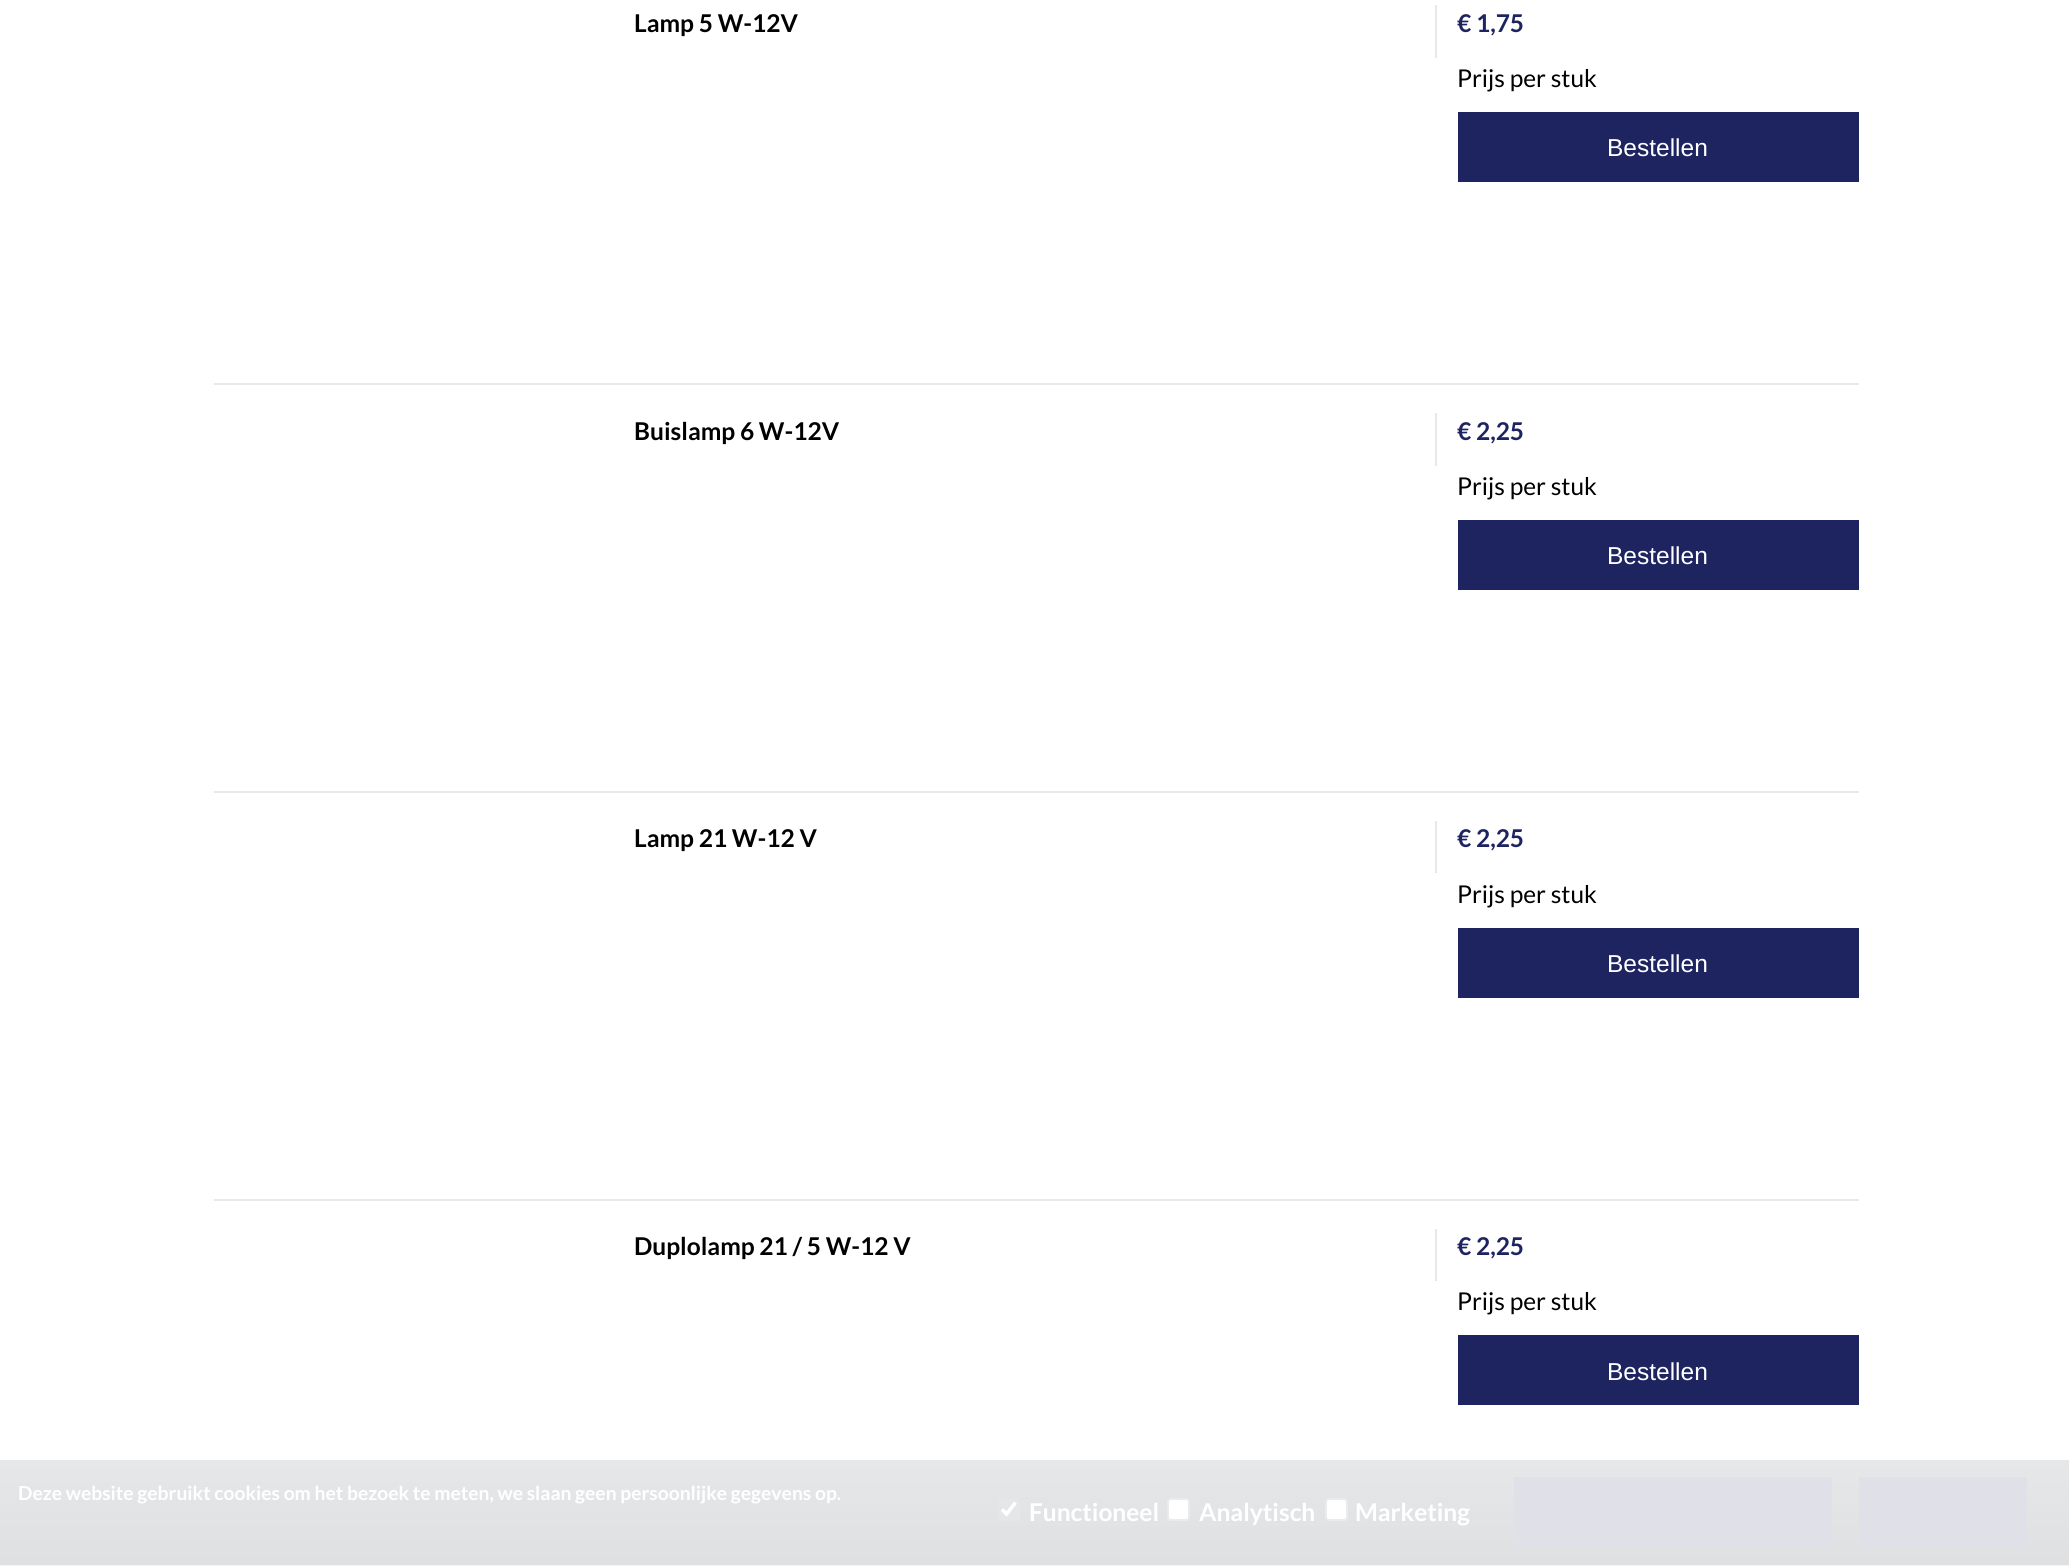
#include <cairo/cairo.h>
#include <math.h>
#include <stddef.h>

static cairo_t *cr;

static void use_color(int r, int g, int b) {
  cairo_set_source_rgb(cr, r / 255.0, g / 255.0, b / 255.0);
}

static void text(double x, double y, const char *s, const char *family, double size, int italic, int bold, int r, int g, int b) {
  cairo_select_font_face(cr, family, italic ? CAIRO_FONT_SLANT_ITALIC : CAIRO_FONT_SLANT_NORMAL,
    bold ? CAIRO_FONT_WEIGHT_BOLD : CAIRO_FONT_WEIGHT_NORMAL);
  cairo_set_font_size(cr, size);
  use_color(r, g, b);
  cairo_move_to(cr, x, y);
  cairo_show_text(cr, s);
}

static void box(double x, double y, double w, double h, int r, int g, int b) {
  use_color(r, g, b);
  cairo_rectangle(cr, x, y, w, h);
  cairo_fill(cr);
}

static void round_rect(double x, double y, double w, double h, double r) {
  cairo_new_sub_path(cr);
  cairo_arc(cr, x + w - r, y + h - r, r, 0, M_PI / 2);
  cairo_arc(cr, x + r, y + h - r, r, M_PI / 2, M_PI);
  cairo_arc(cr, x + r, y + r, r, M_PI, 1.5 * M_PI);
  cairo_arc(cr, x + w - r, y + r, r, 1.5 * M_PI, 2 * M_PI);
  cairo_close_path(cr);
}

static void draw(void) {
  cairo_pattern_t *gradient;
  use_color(255, 255, 255);
  cairo_paint(cr);
  box(214, 383, 1645, 2, 232, 232, 232);
  box(1435, 5, 2, 53, 232, 232, 232);
  box(1458, 112, 401, 70, 30, 36, 96);
  box(214, 791, 1645, 2, 232, 232, 232);
  box(1435, 413, 2, 53, 232, 232, 232);
  box(1458, 520, 401, 70, 30, 36, 96);
  box(214, 1199, 1645, 2, 232, 232, 232);
  box(1435, 821, 2, 52, 232, 232, 232);
  box(1458, 928, 401, 70, 30, 36, 96);
  box(1435, 1229, 2, 52, 232, 232, 232);
  box(1458, 1335, 401, 70, 30, 36, 96);
  gradient = cairo_pattern_create_linear(1035, 1459, 1035, 1565);
  cairo_pattern_add_color_stop_rgba(gradient, 0, 0.898, 0.906, 0.914, 1);
  cairo_pattern_add_color_stop_rgba(gradient, 1, 0.875, 0.878, 0.882, 1);
  cairo_set_source(cr, gradient);
  cairo_pattern_destroy(gradient);
  cairo_rectangle(cr, 0, 1460, 2069, 105);
  cairo_fill(cr);
  box(0, 1565, 2069, 1, 245, 245, 245);
  use_color(229, 230, 231);
  round_rect(998, 1498, 22, 23, 4);
  cairo_fill(cr);
  cairo_new_path(cr);
  cairo_move_to(cr, 1002, 1509.5);
  cairo_line_to(cr, 1006.5, 1514);
  cairo_line_to(cr, 1015.5, 1502.5);
  use_color(255, 255, 255);
  cairo_set_line_width(cr, 3.6);
  cairo_stroke(cr);
  round_rect(1168, 1499, 21, 21, 3);
  cairo_fill_preserve(cr);
  use_color(235, 235, 235);
  cairo_set_line_width(cr, 2);
  cairo_stroke(cr);
  use_color(255, 255, 255);
  round_rect(1326, 1499, 21, 21, 3);
  cairo_fill_preserve(cr);
  use_color(235, 235, 235);
  cairo_stroke(cr);
  box(1514, 1477, 318, 70, 223, 224, 232);
  box(1859, 1477, 168, 70, 223, 224, 232);
  text(634, 32, "Lamp 5 W-12V", "Lato", 24.5, 0, 1, 0, 0, 0);
  text(1457, 32, "€ 1,75", "Lato", 24.5, 0, 1, 30, 36, 96);
  text(1457, 87, "Prijs per stuk", "Lato", 24.5, 0, 0, 0, 0, 0);
  text(1607, 156, "Bestellen", "Liberation Sans", 24.5, 0, 0, 255, 255, 255);
  text(634, 440, "Buislamp 6 W-12V", "Lato", 24.5, 0, 1, 0, 0, 0);
  text(1457, 440, "€ 2,25", "Lato", 24.5, 0, 1, 30, 36, 96);
  text(1457, 495, "Prijs per stuk", "Lato", 24.5, 0, 0, 0, 0, 0);
  text(1607, 564, "Bestellen", "Liberation Sans", 24.5, 0, 0, 255, 255, 255);
  text(634, 847, "Lamp 21 W-12 V", "Lato", 24.5, 0, 1, 0, 0, 0);
  text(1457, 847, "€ 2,25", "Lato", 24.5, 0, 1, 30, 36, 96);
  text(1457, 903, "Prijs per stuk", "Lato", 24.5, 0, 0, 0, 0, 0);
  text(1607, 972, "Bestellen", "Liberation Sans", 24.5, 0, 0, 255, 255, 255);
  text(634, 1255, "Duplolamp 21 / 5 W-12 V", "Lato", 24.5, 0, 1, 0, 0, 0);
  text(1457, 1255, "€ 2,25", "Lato", 24.5, 0, 1, 30, 36, 96);
  text(1457, 1310, "Prijs per stuk", "Lato", 24.5, 0, 0, 0, 0, 0);
  text(1607, 1380, "Bestellen", "Liberation Sans", 24.5, 0, 0, 255, 255, 255);
  text(18, 1500, "Deze website gebruikt cookies om het bezoek te meten, we slaan geen persoonlijke gegevens op.", "Lato", 19.25, 0, 1, 255, 255, 255);
  text(1029, 1521, "Functioneel", "Lato", 24.5, 0, 1, 255, 255, 255);
  text(1199, 1521, "Analytisch", "Lato", 24.5, 0, 1, 255, 255, 255);
  text(1355, 1521, "Marketing", "Lato", 24.5, 0, 1, 255, 255, 255);
}

int main(void) {
  cairo_surface_t *surface = cairo_image_surface_create(CAIRO_FORMAT_RGB24, 2069, 1566);
  cr = cairo_create(surface);
  cairo_font_options_t *options = cairo_font_options_create();
  cairo_font_options_set_hint_metrics(options, CAIRO_HINT_METRICS_OFF);
  cairo_font_options_set_hint_style(options, CAIRO_HINT_STYLE_NONE);
  cairo_set_font_options(cr, options);
  cairo_set_miter_limit(cr, 4);
  draw();
  cairo_surface_write_to_png(surface, "out.png");
  cairo_font_options_destroy(options);
  cairo_destroy(cr);
  cairo_surface_destroy(surface);
  return 0;
}
